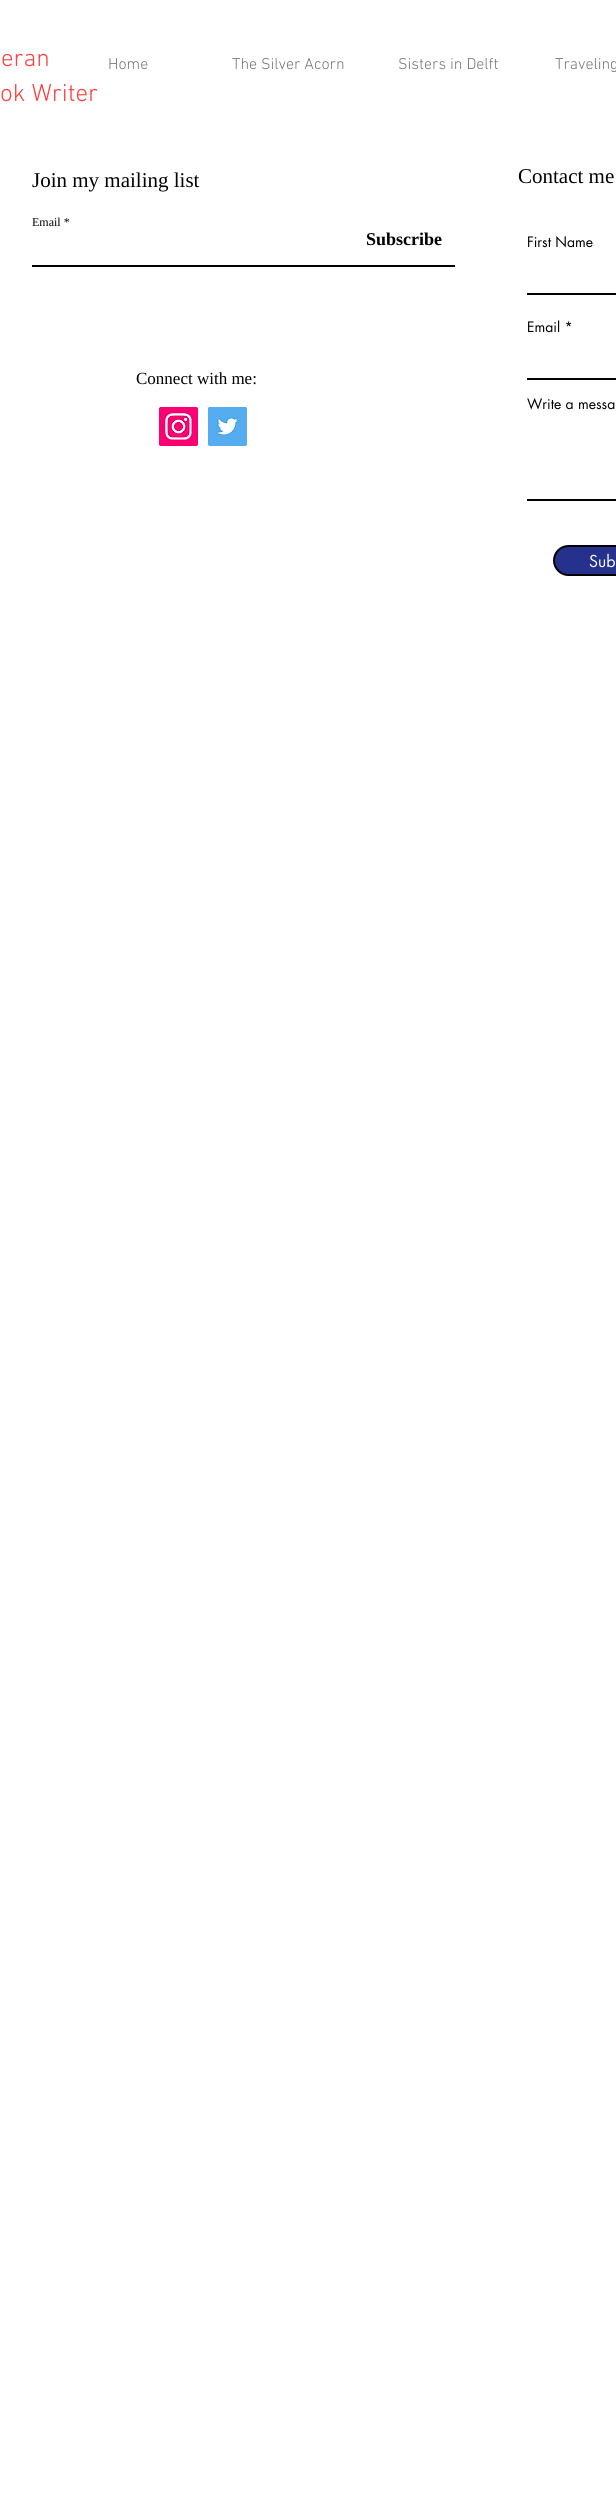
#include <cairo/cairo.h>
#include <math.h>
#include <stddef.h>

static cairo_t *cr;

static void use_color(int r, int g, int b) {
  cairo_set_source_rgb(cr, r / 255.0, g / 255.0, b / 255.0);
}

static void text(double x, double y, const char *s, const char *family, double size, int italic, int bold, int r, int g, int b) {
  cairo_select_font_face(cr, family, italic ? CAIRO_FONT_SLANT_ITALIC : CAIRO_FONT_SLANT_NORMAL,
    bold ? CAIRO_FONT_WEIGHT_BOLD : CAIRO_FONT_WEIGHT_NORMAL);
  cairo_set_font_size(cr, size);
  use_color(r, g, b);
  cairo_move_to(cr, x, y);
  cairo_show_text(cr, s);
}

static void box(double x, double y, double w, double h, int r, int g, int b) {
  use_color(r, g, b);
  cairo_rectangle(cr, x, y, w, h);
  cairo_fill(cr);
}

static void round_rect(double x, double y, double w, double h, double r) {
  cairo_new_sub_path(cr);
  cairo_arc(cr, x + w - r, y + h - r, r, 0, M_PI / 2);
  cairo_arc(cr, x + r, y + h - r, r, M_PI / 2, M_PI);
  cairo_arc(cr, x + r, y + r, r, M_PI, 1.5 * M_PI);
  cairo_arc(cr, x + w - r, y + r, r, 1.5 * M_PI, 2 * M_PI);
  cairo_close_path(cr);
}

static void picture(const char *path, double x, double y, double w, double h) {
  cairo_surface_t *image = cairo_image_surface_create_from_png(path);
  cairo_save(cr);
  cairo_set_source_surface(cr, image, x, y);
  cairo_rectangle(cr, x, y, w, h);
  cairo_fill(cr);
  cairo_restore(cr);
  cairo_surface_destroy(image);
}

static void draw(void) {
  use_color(255, 255, 255);
  cairo_paint(cr);
  box(32, 265, 423, 2, 0, 0, 0);
  box(527, 293, 89, 2, 0, 0, 0);
  box(527, 378, 89, 2, 0, 0, 0);
  box(527, 499, 89, 2, 0, 0, 0);
  use_color(37, 49, 141);
  round_rect(554, 546, 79, 29, 14.5);
  cairo_fill_preserve(cr);
  use_color(0, 0, 0);
  cairo_stroke(cr);
  picture("img_01.png", 159, 407, 39, 39);
  picture("img_02.png", 208, 407, 39, 39);
  text(1, 66, "eran", "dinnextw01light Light", 25, 0, 0, 255, 64, 64);
  text(0, 101, "ok Writer", "dinnextw01light Light", 25, 0, 0, 255, 64, 64);
  text(108, 69, "Home", "dinnextw01light Light", 16, 0, 0, 118, 118, 118);
  text(232, 69, "The Silver Acorn", "dinnextw01light Light", 16, 0, 0, 118, 118, 118);
  text(398, 69, "Sisters in Delft", "dinnextw01light Light", 16, 0, 0, 118, 118, 118);
  text(555, 69, "Traveling", "dinnextw01light Light", 16, 0, 0, 118, 118, 118);
  text(32, 187, "Join my mailing list", "Liberation Serif", 21, 0, 0, 0, 0, 0);
  text(32, 226, "Email *", "Liberation Serif", 12, 0, 0, 0, 0, 0);
  text(366, 245, "Subscribe", "Liberation Serif", 18, 0, 1, 0, 0, 0);
  text(518, 183, "Contact me", "Liberation Serif", 21, 0, 0, 0, 0, 0);
  text(527, 247, "First Name", "futura", 14, 0, 0, 0, 0, 0);
  text(527, 332, "Email *", "futura", 14, 0, 0, 0, 0, 0);
  text(527, 409, "Write a messa", "futura", 14, 0, 0, 0, 0, 0);
  text(589, 567, "Sub", "futura", 16, 0, 0, 255, 255, 255);
  text(136, 384, "Connect with me:", "Liberation Serif", 17, 0, 0, 0, 0, 0);
}

int main(void) {
  cairo_surface_t *surface = cairo_image_surface_create(CAIRO_FORMAT_RGB24, 616, 2505);
  cr = cairo_create(surface);
  cairo_font_options_t *options = cairo_font_options_create();
  cairo_font_options_set_hint_metrics(options, CAIRO_HINT_METRICS_OFF);
  cairo_font_options_set_hint_style(options, CAIRO_HINT_STYLE_NONE);
  cairo_set_font_options(cr, options);
  cairo_set_miter_limit(cr, 4);
  draw();
  cairo_surface_write_to_png(surface, "out.png");
  cairo_font_options_destroy(options);
  cairo_destroy(cr);
  cairo_surface_destroy(surface);
  return 0;
}
